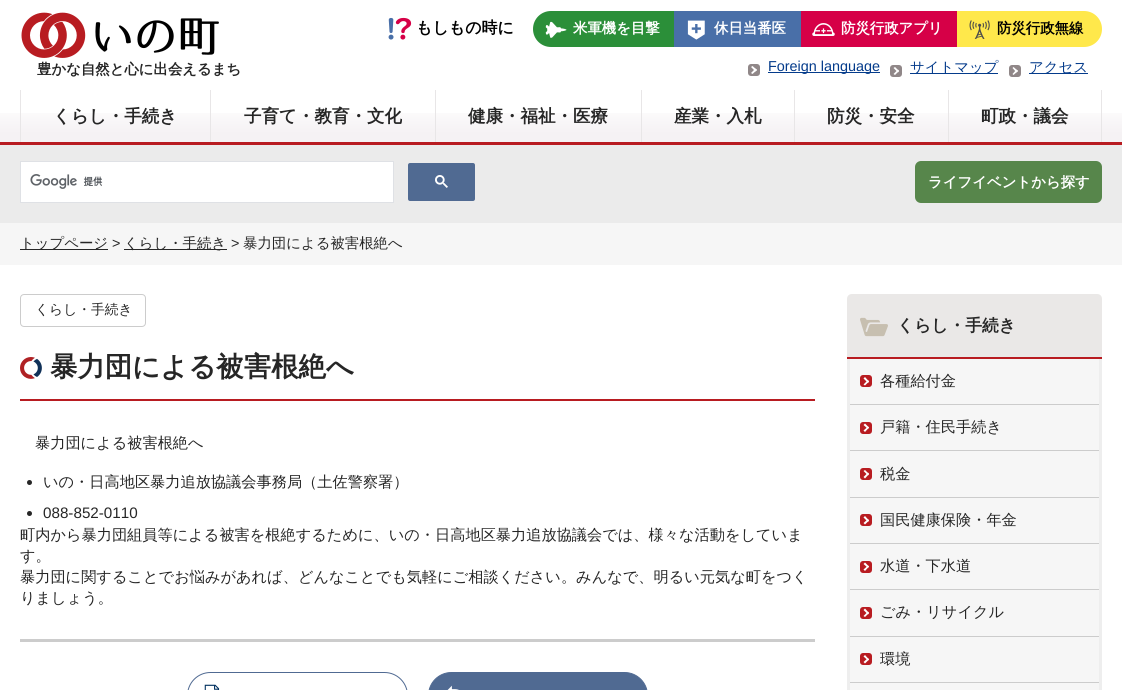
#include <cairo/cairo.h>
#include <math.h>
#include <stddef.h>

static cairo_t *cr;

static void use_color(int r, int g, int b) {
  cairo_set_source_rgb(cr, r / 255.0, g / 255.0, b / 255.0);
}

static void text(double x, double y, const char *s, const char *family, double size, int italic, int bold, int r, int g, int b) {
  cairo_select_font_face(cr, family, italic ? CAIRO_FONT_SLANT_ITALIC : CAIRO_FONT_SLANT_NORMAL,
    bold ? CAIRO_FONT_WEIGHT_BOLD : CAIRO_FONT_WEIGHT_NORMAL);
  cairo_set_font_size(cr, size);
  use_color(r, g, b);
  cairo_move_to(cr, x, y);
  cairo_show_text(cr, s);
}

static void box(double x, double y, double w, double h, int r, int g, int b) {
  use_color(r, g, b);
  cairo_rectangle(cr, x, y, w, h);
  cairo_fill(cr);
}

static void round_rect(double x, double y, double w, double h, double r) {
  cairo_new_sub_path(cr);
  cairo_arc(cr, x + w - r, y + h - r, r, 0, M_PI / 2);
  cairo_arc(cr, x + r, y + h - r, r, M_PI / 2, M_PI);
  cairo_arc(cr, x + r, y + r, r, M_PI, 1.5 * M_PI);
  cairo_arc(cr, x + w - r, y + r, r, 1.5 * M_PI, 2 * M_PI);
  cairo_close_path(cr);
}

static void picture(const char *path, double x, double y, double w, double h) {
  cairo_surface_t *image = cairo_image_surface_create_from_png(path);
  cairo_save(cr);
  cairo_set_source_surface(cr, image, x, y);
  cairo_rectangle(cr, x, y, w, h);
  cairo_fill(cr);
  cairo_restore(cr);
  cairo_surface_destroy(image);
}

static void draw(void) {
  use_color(255, 255, 255);
  cairo_paint(cr);
  box(0, 142, 1122, 3, 184, 28, 33);
  picture("img_01.png", 21, 12, 198, 46);
  picture("img_02.png", 388, 17, 24, 23);
  use_color(43, 143, 57);
  cairo_new_path(cr);
  cairo_move_to(cr, 551, 11);
  cairo_line_to(cr, 674, 11);
  cairo_line_to(cr, 674, 47);
  cairo_line_to(cr, 551, 47);
  cairo_curve_to(cr, 541, 47, 533, 39, 533, 29);
  cairo_curve_to(cr, 533, 19, 541, 11, 551, 11);
  cairo_close_path(cr);
  cairo_fill(cr);
  picture("img_03.png", 545, 21, 22, 17);
  box(674, 11, 127, 36, 73, 111, 168);
  picture("img_04.png", 687, 20, 18, 20);
  box(801, 11, 156, 36, 214, 0, 71);
  picture("img_05.png", 812, 23, 23, 13);
  use_color(255, 232, 75);
  cairo_new_path(cr);
  cairo_move_to(cr, 957, 11);
  cairo_line_to(cr, 1084, 11);
  cairo_curve_to(cr, 1094, 11, 1102, 19, 1102, 29);
  cairo_curve_to(cr, 1102, 39, 1094, 47, 1084, 47);
  cairo_line_to(cr, 957, 47);
  cairo_close_path(cr);
  cairo_fill(cr);
  picture("img_06.png", 969, 20, 21, 19);
  use_color(144, 135, 136);
  round_rect(748, 64, 12, 12, 3);
  cairo_fill(cr);
  box(768, 72, 112, 1, 4, 59, 139);
  use_color(255, 255, 255);
  cairo_new_path(cr);
  cairo_move_to(cr, 752.5, 66);
  cairo_line_to(cr, 757, 70);
  cairo_line_to(cr, 755.5, 71.5);
  cairo_line_to(cr, 751, 67);
  cairo_close_path(cr);
  cairo_fill(cr);
  cairo_new_path(cr);
  cairo_move_to(cr, 755.5, 68.5);
  cairo_line_to(cr, 757, 70);
  cairo_line_to(cr, 752.5, 74);
  cairo_line_to(cr, 751, 73);
  cairo_close_path(cr);
  cairo_fill(cr);
  use_color(144, 135, 136);
  round_rect(890, 65, 12, 12, 3);
  cairo_fill(cr);
  box(910, 73, 88, 1, 4, 59, 139);
  use_color(255, 255, 255);
  cairo_new_path(cr);
  cairo_move_to(cr, 895, 67);
  cairo_line_to(cr, 899, 71);
  cairo_line_to(cr, 898, 72.5);
  cairo_line_to(cr, 893.5, 68);
  cairo_close_path(cr);
  cairo_fill(cr);
  cairo_new_path(cr);
  cairo_move_to(cr, 898, 69.5);
  cairo_line_to(cr, 899, 71);
  cairo_line_to(cr, 895, 75);
  cairo_line_to(cr, 893.5, 74);
  cairo_close_path(cr);
  cairo_fill(cr);
  use_color(144, 135, 136);
  round_rect(1009, 65, 12, 12, 3);
  cairo_fill(cr);
  box(1029, 73, 59, 1, 4, 59, 139);
  use_color(255, 255, 255);
  cairo_new_path(cr);
  cairo_move_to(cr, 1013.5, 67);
  cairo_line_to(cr, 1018, 71);
  cairo_line_to(cr, 1016.5, 72.5);
  cairo_line_to(cr, 1012.5, 68);
  cairo_close_path(cr);
  cairo_fill(cr);
  cairo_new_path(cr);
  cairo_move_to(cr, 1016.5, 69.5);
  cairo_line_to(cr, 1018, 71);
  cairo_line_to(cr, 1013.5, 75);
  cairo_line_to(cr, 1012.5, 74);
  cairo_close_path(cr);
  cairo_fill(cr);
  picture("img_07.png", 0, 113, 1122, 29);
  box(20, 90, 1, 52, 232, 230, 231);
  box(210, 90, 1, 52, 232, 230, 231);
  box(435, 90, 1, 52, 232, 230, 231);
  box(641, 90, 1, 52, 232, 230, 231);
  box(794, 90, 1, 52, 232, 230, 231);
  box(1101, 90, 1, 52, 232, 230, 231);
  box(948, 90, 1, 52, 232, 230, 231);
  box(0, 145, 1122, 78, 235, 235, 235);
  use_color(255, 255, 255);
  cairo_rectangle(cr, 20.5, 161.5, 373, 41);
  cairo_fill_preserve(cr);
  use_color(223, 225, 229);
  cairo_set_line_width(cr, 1);
  cairo_stroke(cr);
  picture("img_08.png", 30, 174, 73, 15);
  use_color(80, 106, 146);
  round_rect(408, 163, 67, 38, 2);
  cairo_fill(cr);
  picture("img_09.png", 435, 175, 13, 13);
  use_color(87, 134, 75);
  round_rect(915, 161, 187, 42, 6);
  cairo_fill(cr);
  box(0, 223, 1122, 42, 246, 246, 246);
  box(20, 249, 88, 1, 38, 38, 38);
  box(124, 249, 103, 1, 38, 38, 38);
  round_rect(20.5, 294.5, 125, 32, 3.5);
  use_color(204, 204, 204);
  cairo_stroke(cr);
  box(20, 399, 795, 2, 184, 28, 33);
  picture("img_10.png", 20, 357, 22, 22);
  use_color(38, 38, 38);
  cairo_arc(cr, 29.5, 482.5, 2.5, 0, 2 * M_PI);
  cairo_fill(cr);
  cairo_arc(cr, 29.5, 513.5, 2.5, 0, 2 * M_PI);
  cairo_fill(cr);
  box(20, 639, 795, 3, 204, 204, 204);
  round_rect(187.5, 672.5, 220, 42, 23);
  use_color(80, 106, 146);
  cairo_stroke(cr);
  picture("img_11.png", 204, 684, 16, 6);
  round_rect(428.5, 672.5, 219, 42, 23);
  cairo_fill_preserve(cr);
  cairo_stroke(cr);
  picture("img_12.png", 447, 685, 12, 5);
  use_color(234, 232, 231);
  cairo_new_path(cr);
  cairo_move_to(cr, 852, 294);
  cairo_line_to(cr, 1097, 294);
  cairo_curve_to(cr, 1100, 294, 1102, 296, 1102, 299);
  cairo_line_to(cr, 1102, 359);
  cairo_line_to(cr, 847, 359);
  cairo_line_to(cr, 847, 299);
  cairo_curve_to(cr, 847, 296, 849, 294, 852, 294);
  cairo_close_path(cr);
  cairo_fill(cr);
  box(847, 357, 255, 2, 184, 28, 33);
  picture("img_13.png", 860, 317, 28, 20);
  box(850, 359, 249, 331, 246, 246, 246);
  use_color(238, 238, 238);
  cairo_set_fill_rule(cr, CAIRO_FILL_RULE_EVEN_ODD);
  cairo_new_path(cr);
  cairo_move_to(cr, 847, 359);
  cairo_line_to(cr, 1102, 359);
  cairo_line_to(cr, 1102, 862);
  cairo_curve_to(cr, 1102, 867, 1099, 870, 1094, 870);
  cairo_line_to(cr, 855, 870);
  cairo_curve_to(cr, 850, 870, 847, 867, 847, 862);
  cairo_close_path(cr);
  cairo_move_to(cr, 850, 359);
  cairo_line_to(cr, 1099, 359);
  cairo_line_to(cr, 1099, 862);
  cairo_curve_to(cr, 1099, 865, 1097, 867, 1094, 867);
  cairo_line_to(cr, 855, 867);
  cairo_curve_to(cr, 852, 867, 850, 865, 850, 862);
  cairo_close_path(cr);
  cairo_fill(cr);
  box(850, 404, 249, 1, 204, 204, 204);
  use_color(184, 28, 33);
  round_rect(860, 375, 12, 12, 3);
  cairo_fill(cr);
  use_color(255, 255, 255);
  cairo_set_fill_rule(cr, CAIRO_FILL_RULE_WINDING);
  cairo_new_path(cr);
  cairo_move_to(cr, 865, 377);
  cairo_line_to(cr, 869, 381.5);
  cairo_line_to(cr, 868, 383);
  cairo_line_to(cr, 863.5, 378.5);
  cairo_close_path(cr);
  cairo_fill(cr);
  cairo_new_path(cr);
  cairo_move_to(cr, 868, 380);
  cairo_line_to(cr, 869, 381.5);
  cairo_line_to(cr, 865, 385.5);
  cairo_line_to(cr, 863.5, 384.5);
  cairo_close_path(cr);
  cairo_fill(cr);
  box(850, 450, 249, 1, 204, 204, 204);
  use_color(184, 28, 33);
  round_rect(860, 422, 12, 12, 3);
  cairo_fill(cr);
  use_color(255, 255, 255);
  cairo_new_path(cr);
  cairo_move_to(cr, 865, 423.5);
  cairo_line_to(cr, 869, 427.5);
  cairo_line_to(cr, 868, 429);
  cairo_line_to(cr, 863.5, 425);
  cairo_close_path(cr);
  cairo_fill(cr);
  cairo_new_path(cr);
  cairo_move_to(cr, 868, 426.5);
  cairo_line_to(cr, 869, 427.5);
  cairo_line_to(cr, 865, 432);
  cairo_line_to(cr, 863.5, 430.5);
  cairo_close_path(cr);
  cairo_fill(cr);
  box(850, 497, 249, 1, 204, 204, 204);
  use_color(184, 28, 33);
  round_rect(860, 468, 12, 12, 3);
  cairo_fill(cr);
  use_color(255, 255, 255);
  cairo_new_path(cr);
  cairo_move_to(cr, 865, 470);
  cairo_line_to(cr, 869, 474);
  cairo_line_to(cr, 868, 475.5);
  cairo_line_to(cr, 863.5, 471);
  cairo_close_path(cr);
  cairo_fill(cr);
  cairo_new_path(cr);
  cairo_move_to(cr, 868, 472.5);
  cairo_line_to(cr, 869, 474);
  cairo_line_to(cr, 865, 478.5);
  cairo_line_to(cr, 863.5, 477);
  cairo_close_path(cr);
  cairo_fill(cr);
  box(850, 543, 249, 1, 204, 204, 204);
  use_color(184, 28, 33);
  round_rect(860, 514, 12, 12, 3);
  cairo_fill(cr);
  use_color(255, 255, 255);
  cairo_new_path(cr);
  cairo_move_to(cr, 865, 516);
  cairo_line_to(cr, 869, 520.5);
  cairo_line_to(cr, 868, 522);
  cairo_line_to(cr, 863.5, 517.5);
  cairo_close_path(cr);
  cairo_fill(cr);
  cairo_new_path(cr);
  cairo_move_to(cr, 868, 519);
  cairo_line_to(cr, 869, 520.5);
  cairo_line_to(cr, 865, 524.5);
  cairo_line_to(cr, 863.5, 523);
  cairo_close_path(cr);
  cairo_fill(cr);
  box(850, 589, 249, 1, 204, 204, 204);
  use_color(184, 28, 33);
  round_rect(860, 561, 12, 12, 3);
  cairo_fill(cr);
  use_color(255, 255, 255);
  cairo_new_path(cr);
  cairo_move_to(cr, 865, 562.5);
  cairo_line_to(cr, 869, 566.5);
  cairo_line_to(cr, 868, 568);
  cairo_line_to(cr, 863.5, 564);
  cairo_close_path(cr);
  cairo_fill(cr);
  cairo_new_path(cr);
  cairo_move_to(cr, 868, 565.5);
  cairo_line_to(cr, 869, 566.5);
  cairo_line_to(cr, 865, 571);
  cairo_line_to(cr, 863.5, 569.5);
  cairo_close_path(cr);
  cairo_fill(cr);
  box(850, 636, 249, 1, 204, 204, 204);
  use_color(184, 28, 33);
  round_rect(860, 607, 12, 12, 3);
  cairo_fill(cr);
  use_color(255, 255, 255);
  cairo_new_path(cr);
  cairo_move_to(cr, 865, 608.5);
  cairo_line_to(cr, 869, 613);
  cairo_line_to(cr, 868, 614.5);
  cairo_line_to(cr, 863.5, 610);
  cairo_close_path(cr);
  cairo_fill(cr);
  cairo_new_path(cr);
  cairo_move_to(cr, 868, 611.5);
  cairo_line_to(cr, 869, 613);
  cairo_line_to(cr, 865, 617);
  cairo_line_to(cr, 863.5, 616);
  cairo_close_path(cr);
  cairo_fill(cr);
  box(850, 682, 249, 1, 204, 204, 204);
  use_color(184, 28, 33);
  round_rect(860, 653, 12, 12, 3);
  cairo_fill(cr);
  use_color(255, 255, 255);
  cairo_new_path(cr);
  cairo_move_to(cr, 865, 655);
  cairo_line_to(cr, 869, 659.5);
  cairo_line_to(cr, 868, 660.5);
  cairo_line_to(cr, 863.5, 656.5);
  cairo_close_path(cr);
  cairo_fill(cr);
  cairo_new_path(cr);
  cairo_move_to(cr, 868, 658);
  cairo_line_to(cr, 869, 659.5);
  cairo_line_to(cr, 865, 663.5);
  cairo_line_to(cr, 863.5, 662);
  cairo_close_path(cr);
  cairo_fill(cr);
  text(37, 74, "豊かな自然と心に出会えるまち", "WenQuanYi Zen Hei", 14.4, 0, 1, 38, 38, 38);
  text(416, 33, "もしもの時に", "WenQuanYi Zen Hei", 16, 0, 1, 0, 0, 0);
  text(573, 33, "米軍機を目撃", "WenQuanYi Zen Hei", 14.4, 0, 1, 255, 255, 255);
  text(714, 33, "休日当番医", "WenQuanYi Zen Hei", 14.4, 0, 1, 255, 255, 255);
  text(841, 33, "防災行政アプリ", "WenQuanYi Zen Hei", 14.4, 0, 1, 255, 255, 255);
  text(997, 33, "防災行政無線", "WenQuanYi Zen Hei", 14.4, 0, 1, 0, 0, 0);
  text(768, 71, "Foreign language", "Liberation Sans", 14.4, 0, 0, 4, 59, 139);
  text(910, 72, "サイトマップ", "WenQuanYi Zen Hei Medium", 14.4, 0, 0, 4, 59, 139);
  text(1029, 72, "アクセス", "WenQuanYi Zen Hei Medium", 14.4, 0, 0, 4, 59, 139);
  text(53, 122, "くらし・手続き", "WenQuanYi Zen Hei", 17.5, 0, 1, 38, 38, 38);
  text(244, 122, "子育て・教育・文化", "WenQuanYi Zen Hei", 17.5, 0, 1, 38, 38, 38);
  text(468, 122, "健康・福祉・医療", "WenQuanYi Zen Hei", 17.5, 0, 1, 38, 38, 38);
  text(674, 122, "産業・入札", "WenQuanYi Zen Hei", 17.5, 0, 1, 38, 38, 38);
  text(827, 122, "防災・安全", "WenQuanYi Zen Hei", 17.5, 0, 1, 38, 38, 38);
  text(981, 122, "町政・議会", "WenQuanYi Zen Hei", 17.5, 0, 1, 38, 38, 38);
  text(928, 187, "ライフイベントから探す", "WenQuanYi Zen Hei", 14.4, 0, 1, 255, 255, 255);
  text(20, 248, "トップページ", "WenQuanYi Zen Hei Medium", 14.4, 0, 0, 38, 38, 38);
  text(112, 248, ">", "Liberation Sans", 14.4, 0, 0, 38, 38, 38);
  text(124, 248, "くらし・手続き", "WenQuanYi Zen Hei Medium", 14.4, 0, 0, 38, 38, 38);
  text(231, 248, ">", "Liberation Sans", 14.4, 0, 0, 38, 38, 38);
  text(243, 248, "暴力団による被害根絶へ", "WenQuanYi Zen Hei Medium", 14.4, 0, 0, 38, 38, 38);
  text(35, 314, "くらし・手続き", "WenQuanYi Zen Hei Medium", 13.75, 0, 0, 38, 38, 38);
  text(50, 376, "暴力団による被害根絶へ", "WenQuanYi Zen Hei", 27.4, 0, 1, 38, 38, 38);
  text(35, 448, "暴力団による被害根絶へ", "WenQuanYi Zen Hei Medium", 15.2, 0, 0, 38, 38, 38);
  text(43, 487, "いの・日高地区暴力追放協議会事務局（土佐警察署）", "WenQuanYi Zen Hei Medium", 15.2, 0, 0, 38, 38, 38);
  text(43, 518, "088-852-0110", "Liberation Sans", 15.2, 0, 0, 38, 38, 38);
  text(20, 540, "町内から暴力団組員等による被害を根絶するために、いの・日高地区暴力追放協議会では、様々な活動をしていま", "WenQuanYi Zen Hei Medium", 15.2, 0, 0, 38, 38, 38);
  text(20, 561, "す。", "WenQuanYi Zen Hei Medium", 15.2, 0, 0, 38, 38, 38);
  text(20, 582, "暴力団に関することでお悩みがあれば、どんなことでも気軽にご相談ください。みんなで、明るい元気な町をつく", "WenQuanYi Zen Hei Medium", 15.2, 0, 0, 38, 38, 38);
  text(20, 603, "りましょう。", "WenQuanYi Zen Hei Medium", 15.2, 0, 0, 38, 38, 38);
  text(897, 331, "くらし・手続き", "WenQuanYi Zen Hei", 16.75, 0, 1, 38, 38, 38);
  text(880, 386, "各種給付金", "WenQuanYi Zen Hei Medium", 15.2, 0, 0, 38, 38, 38);
  text(880, 432, "戸籍・住民手続き", "WenQuanYi Zen Hei Medium", 15.2, 0, 0, 38, 38, 38);
  text(880, 479, "税金", "WenQuanYi Zen Hei Medium", 15.2, 0, 0, 38, 38, 38);
  text(880, 525, "国民健康保険・年金", "WenQuanYi Zen Hei Medium", 15.2, 0, 0, 38, 38, 38);
  text(880, 571, "水道・下水道", "WenQuanYi Zen Hei Medium", 15.2, 0, 0, 38, 38, 38);
  text(880, 617, "ごみ・リサイクル", "WenQuanYi Zen Hei Medium", 15.2, 0, 0, 38, 38, 38);
  text(880, 664, "環境", "WenQuanYi Zen Hei Medium", 15.2, 0, 0, 38, 38, 38);
}

int main(void) {
  cairo_surface_t *surface = cairo_image_surface_create(CAIRO_FORMAT_RGB24, 1122, 690);
  cr = cairo_create(surface);
  cairo_font_options_t *options = cairo_font_options_create();
  cairo_font_options_set_hint_metrics(options, CAIRO_HINT_METRICS_OFF);
  cairo_font_options_set_hint_style(options, CAIRO_HINT_STYLE_NONE);
  cairo_set_font_options(cr, options);
  cairo_set_miter_limit(cr, 4);
  draw();
  cairo_surface_write_to_png(surface, "out.png");
  cairo_font_options_destroy(options);
  cairo_destroy(cr);
  cairo_surface_destroy(surface);
  return 0;
}
